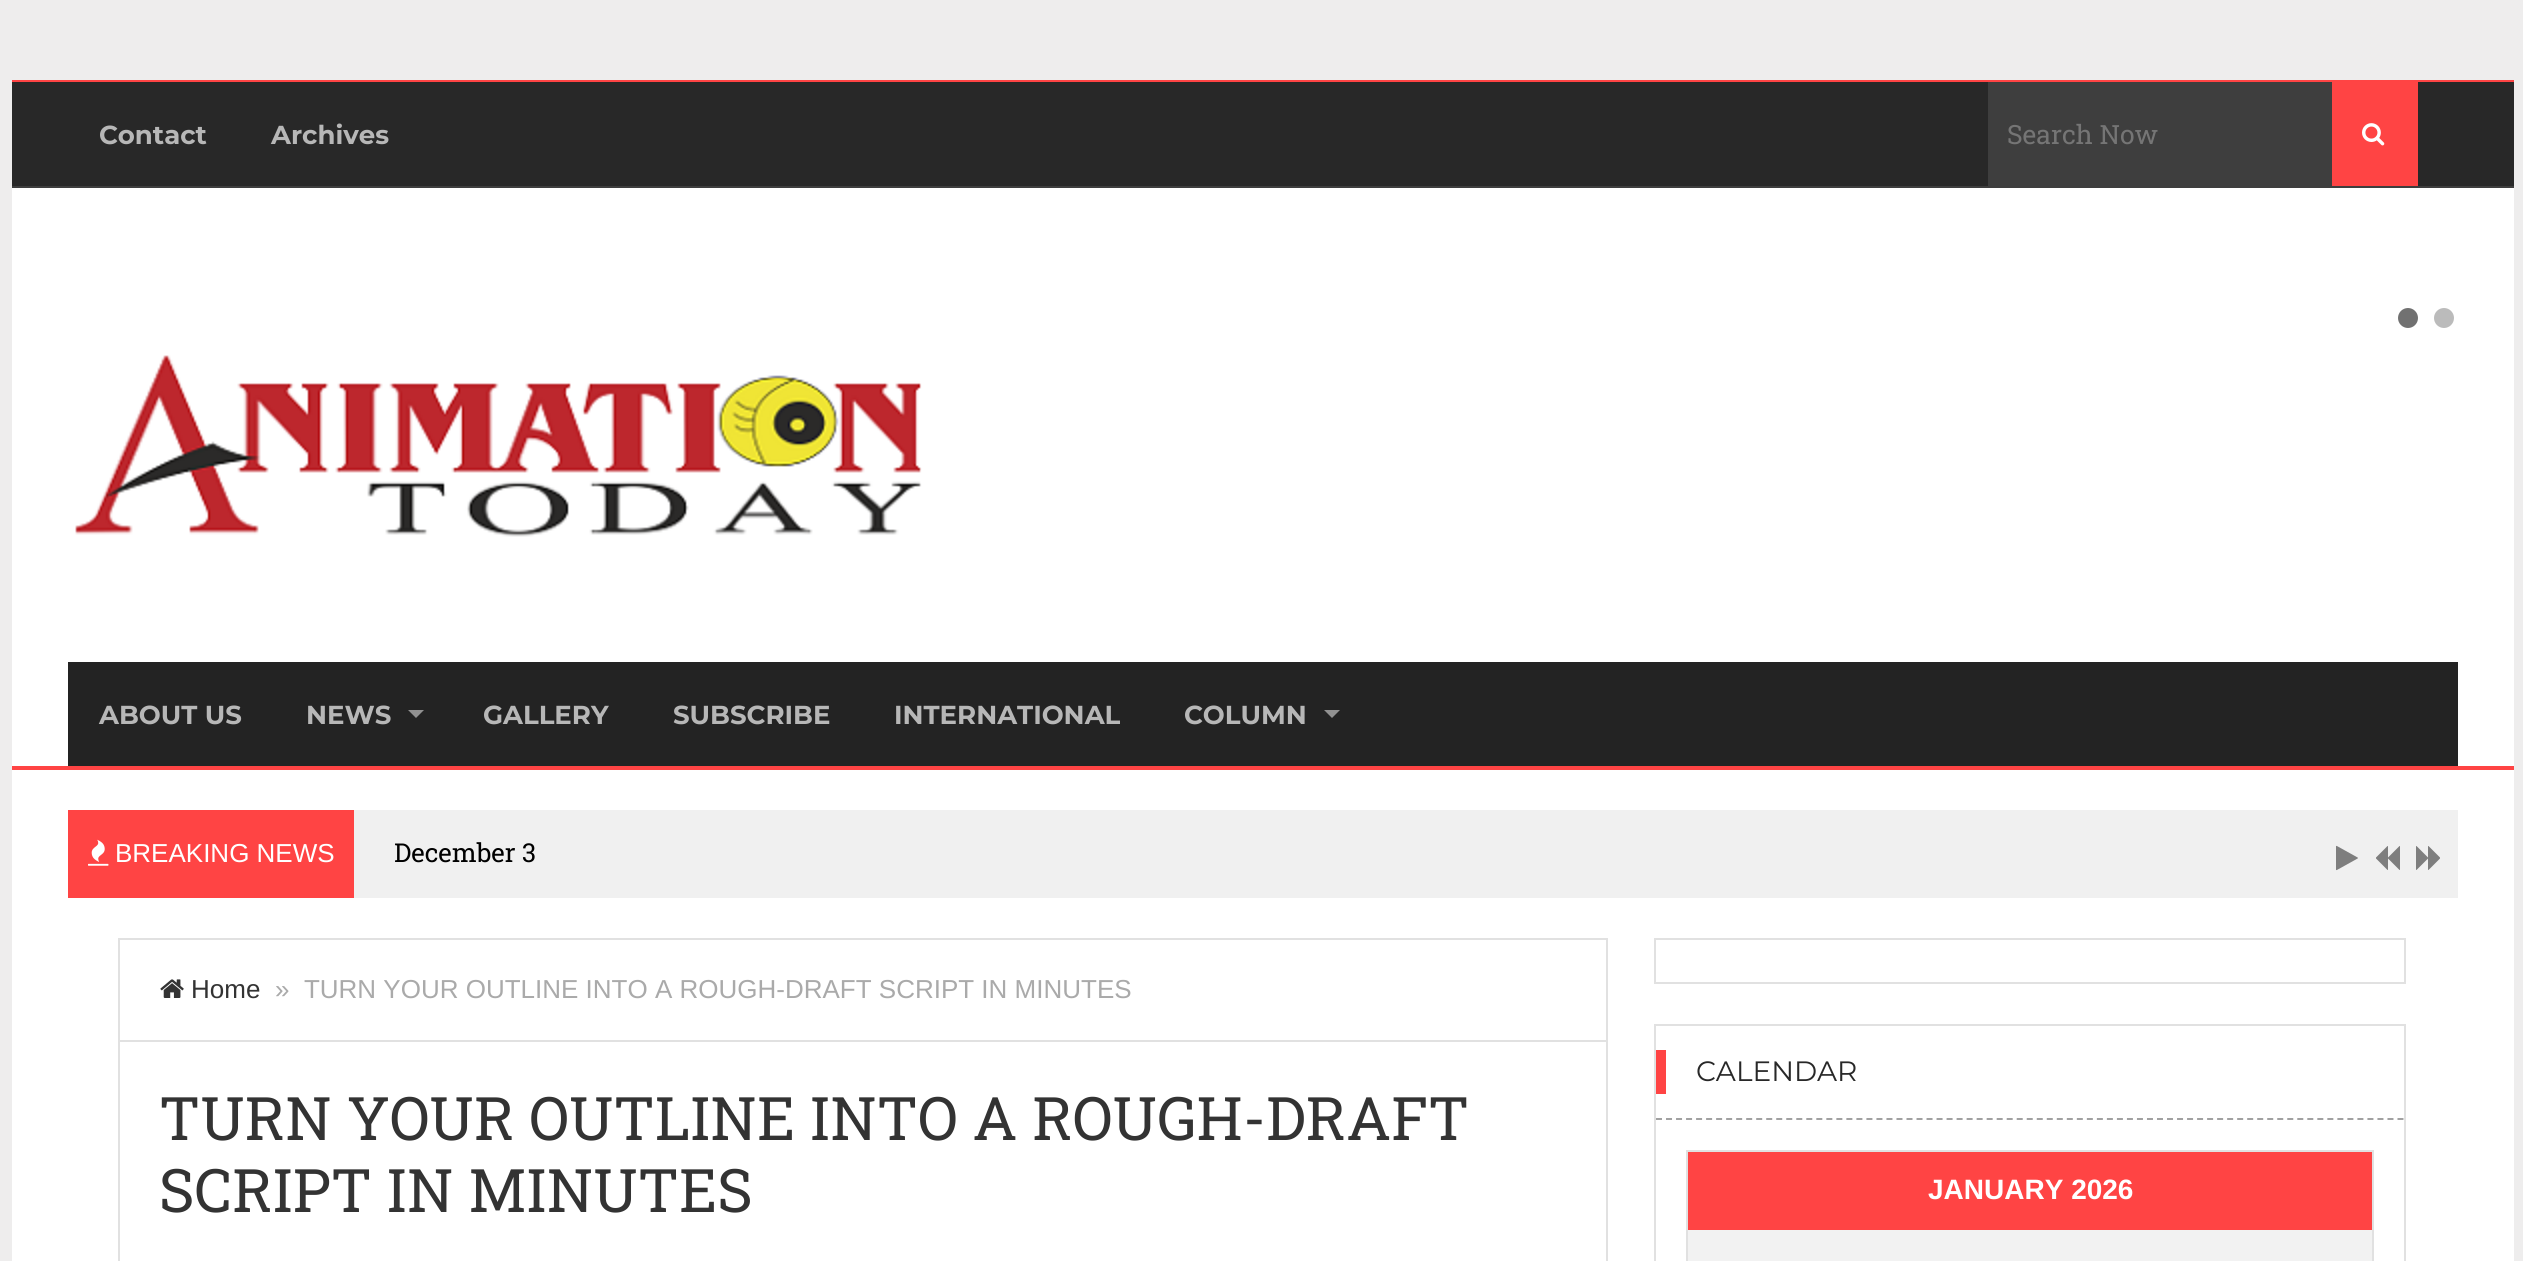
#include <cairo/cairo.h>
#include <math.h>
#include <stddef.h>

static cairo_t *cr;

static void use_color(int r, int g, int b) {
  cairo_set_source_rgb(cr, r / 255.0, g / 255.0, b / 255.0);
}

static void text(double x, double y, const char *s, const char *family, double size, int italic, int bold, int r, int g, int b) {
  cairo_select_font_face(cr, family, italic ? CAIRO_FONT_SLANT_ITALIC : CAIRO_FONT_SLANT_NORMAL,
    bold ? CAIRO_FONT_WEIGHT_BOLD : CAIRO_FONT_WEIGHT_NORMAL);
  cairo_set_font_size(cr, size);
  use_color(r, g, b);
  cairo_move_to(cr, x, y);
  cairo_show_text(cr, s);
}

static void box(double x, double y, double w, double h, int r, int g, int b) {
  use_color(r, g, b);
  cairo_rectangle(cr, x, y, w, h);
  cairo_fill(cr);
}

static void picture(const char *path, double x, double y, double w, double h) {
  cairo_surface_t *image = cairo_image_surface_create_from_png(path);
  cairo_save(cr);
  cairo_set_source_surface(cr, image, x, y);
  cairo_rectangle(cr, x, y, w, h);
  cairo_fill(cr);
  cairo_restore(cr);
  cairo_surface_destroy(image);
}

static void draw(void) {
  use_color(238, 237, 237);
  cairo_paint(cr);
  box(12, 188, 2502, 1073, 255, 255, 255);
  box(12, 80, 2502, 2, 255, 68, 68);
  box(12, 766, 2502, 4, 255, 68, 68);
  box(12, 82, 2502, 104, 40, 40, 40);
  box(12, 186, 2502, 2, 62, 62, 62);
  box(1988, 82, 344, 104, 62, 62, 62);
  box(2332, 82, 86, 104, 255, 68, 68);
  picture("img_01.png", 2362, 123, 23, 23);
  use_color(113, 113, 113);
  cairo_arc(cr, 2408, 318, 10, 0, 2 * M_PI);
  cairo_fill(cr);
  use_color(187, 187, 187);
  cairo_arc(cr, 2444, 318, 10, 0, 2 * M_PI);
  cairo_fill(cr);
  picture("img_02.png", 75, 355, 847, 182);
  box(68, 662, 2390, 104, 35, 35, 35);
  use_color(145, 145, 145);
  cairo_new_path(cr);
  cairo_move_to(cr, 408, 710);
  cairo_line_to(cr, 424, 710);
  cairo_line_to(cr, 416, 718);
  cairo_close_path(cr);
  cairo_fill(cr);
  cairo_new_path(cr);
  cairo_move_to(cr, 1324, 710);
  cairo_line_to(cr, 1340, 710);
  cairo_line_to(cr, 1332, 718);
  cairo_close_path(cr);
  cairo_fill(cr);
  box(354, 810, 2104, 88, 240, 240, 240);
  box(68, 810, 286, 88, 255, 68, 68);
  picture("img_03.png", 88, 839, 21, 27);
  picture("img_04.png", 2336, 845, 22, 26);
  picture("img_05.png", 2376, 846, 24, 24);
  picture("img_06.png", 2416, 846, 24, 24);
  box(118, 938, 1490, 2, 225, 225, 225);
  box(1606, 938, 2, 323, 225, 225, 225);
  box(118, 938, 2, 323, 225, 225, 225);
  box(120, 1040, 1486, 2, 225, 225, 225);
  picture("img_07.png", 160, 979, 24, 19);
  cairo_rectangle(cr, 1655, 939, 750, 44);
  cairo_stroke(cr);
  cairo_rectangle(cr, 1655, 1025, 750, 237);
  cairo_stroke(cr);
  cairo_new_path(cr);
  cairo_move_to(cr, 1656, 1119);
  cairo_line_to(cr, 2404, 1119);
  use_color(161, 161, 161);
  cairo_set_dash(cr, (double[]){6, 4.02}, 2, 0);
  cairo_stroke(cr);
  box(1656, 1050, 10, 44, 255, 68, 68);
  box(1686, 1150, 688, 2, 225, 225, 225);
  box(2372, 1150, 2, 111, 225, 225, 225);
  box(1686, 1150, 2, 111, 225, 225, 225);
  box(1688, 1152, 684, 78, 255, 68, 68);
  box(1688, 1230, 684, 31, 242, 242, 242);
  text(99, 144, "Contact", "Montserrat", 26, 0, 1, 183, 183, 183);
  text(271, 144, "Archives", "Montserrat", 26, 0, 1, 183, 183, 183);
  text(2007, 144, "Search Now", "Roboto Slab", 26.5, 0, 0, 117, 117, 117);
  text(99, 724, "ABOUT US", "Montserrat", 26, 0, 1, 183, 183, 183);
  text(306, 724, "NEWS", "Montserrat", 26, 0, 1, 183, 183, 183);
  text(483, 724, "GALLERY", "Montserrat", 26, 0, 1, 183, 183, 183);
  text(673, 724, "SUBSCRIBE", "Montserrat", 26, 0, 1, 183, 183, 183);
  text(894, 724, "INTERNATIONAL", "Montserrat", 26, 0, 1, 183, 183, 183);
  text(1184, 724, "COLUMN", "Montserrat", 26, 0, 1, 183, 183, 183);
  text(115, 862, "BREAKING NEWS", "Liberation Sans", 26, 0, 0, 255, 255, 255);
  text(394, 862, "December 3", "Roboto Slab", 26, 0, 0, 0, 0, 0);
  text(191, 998, "Home", "Liberation Sans", 26, 0, 0, 51, 51, 51);
  text(275, 998, "»  TURN YOUR OUTLINE INTO A ROUGH-DRAFT SCRIPT IN MINUTES", "Liberation Sans", 26, 0, 0, 170, 170, 170);
  text(159, 1140, "TURN YOUR OUTLINE INTO A ROUGH-DRAFT", "Roboto Slab", 60, 0, 0, 51, 51, 51);
  text(159, 1212, "SCRIPT IN MINUTES", "Roboto Slab", 60, 0, 0, 51, 51, 51);
  text(1696, 1081, "CALENDAR", "Montserrat", 28, 0, 0, 40, 40, 40);
  text(1928, 1199, "JANUARY 2026", "Liberation Sans", 28, 0, 1, 255, 255, 255);
}

int main(void) {
  cairo_surface_t *surface = cairo_image_surface_create(CAIRO_FORMAT_RGB24, 2523, 1261);
  cr = cairo_create(surface);
  cairo_font_options_t *options = cairo_font_options_create();
  cairo_font_options_set_hint_metrics(options, CAIRO_HINT_METRICS_OFF);
  cairo_font_options_set_hint_style(options, CAIRO_HINT_STYLE_NONE);
  cairo_set_font_options(cr, options);
  cairo_set_miter_limit(cr, 4);
  draw();
  cairo_surface_write_to_png(surface, "out.png");
  cairo_font_options_destroy(options);
  cairo_destroy(cr);
  cairo_surface_destroy(surface);
  return 0;
}
